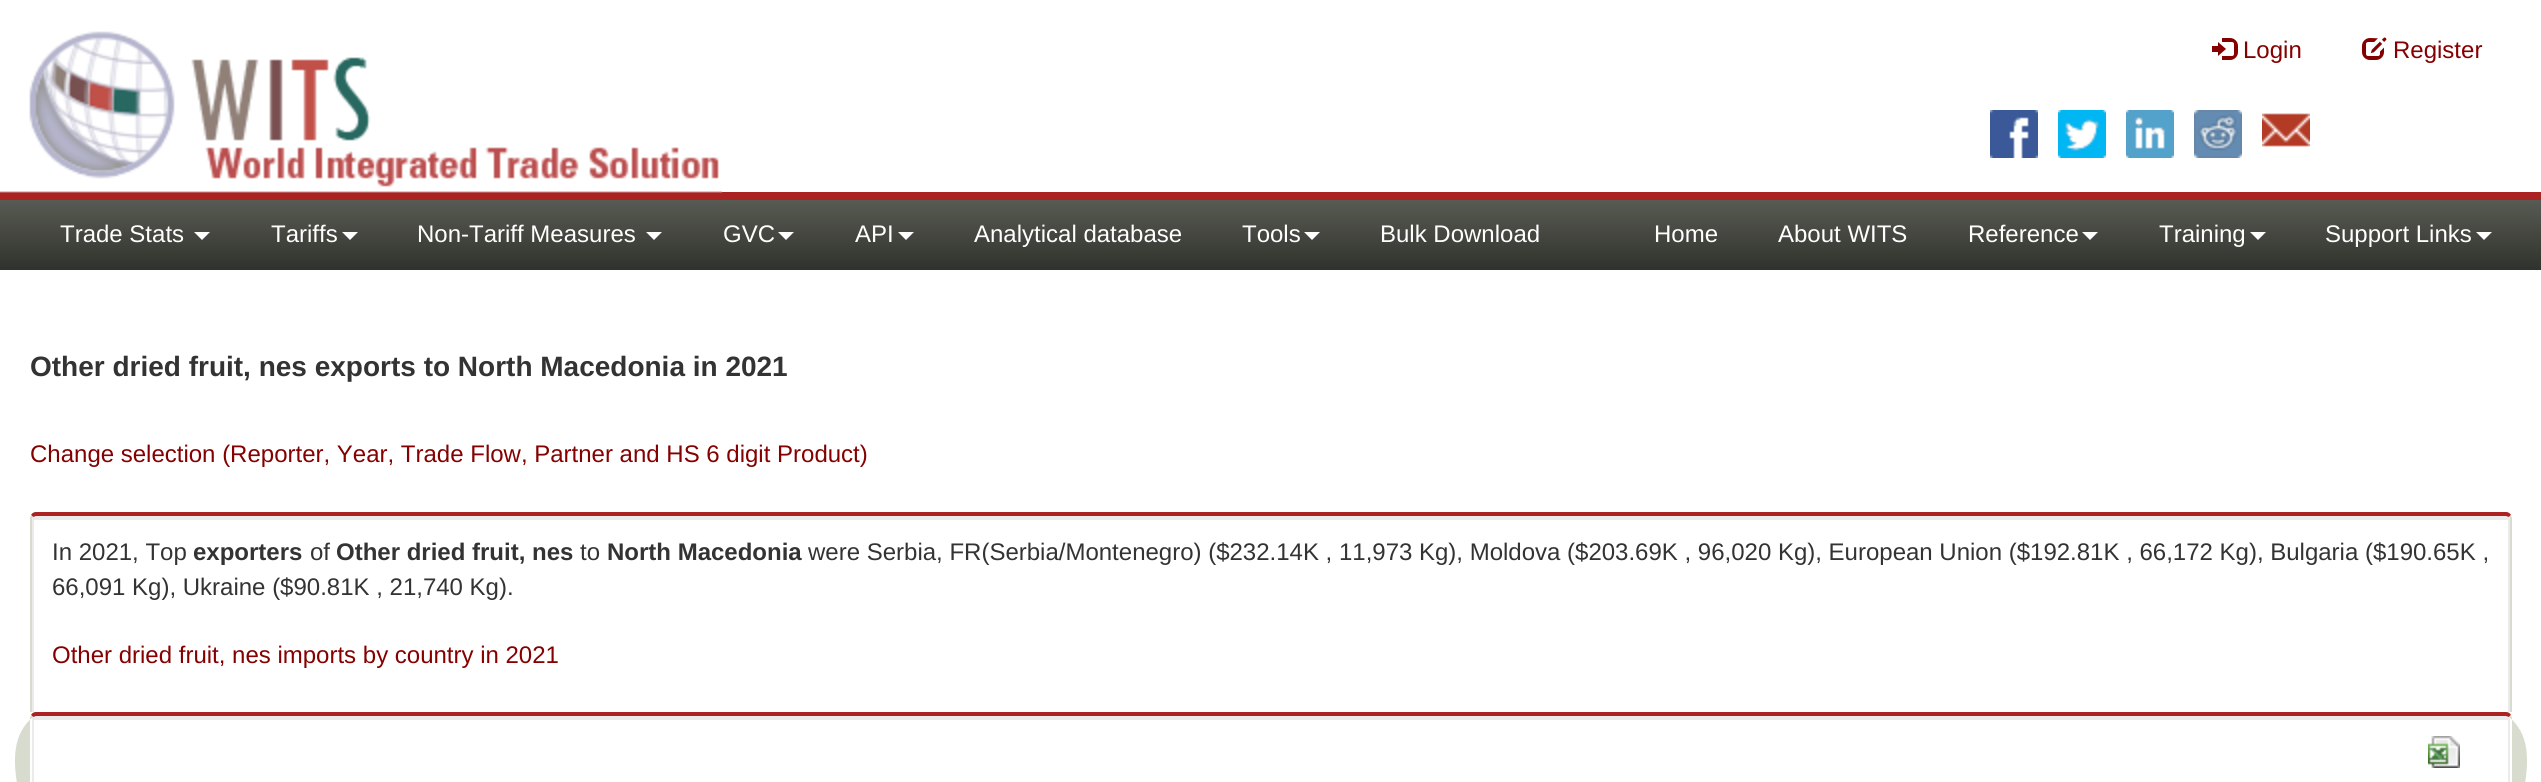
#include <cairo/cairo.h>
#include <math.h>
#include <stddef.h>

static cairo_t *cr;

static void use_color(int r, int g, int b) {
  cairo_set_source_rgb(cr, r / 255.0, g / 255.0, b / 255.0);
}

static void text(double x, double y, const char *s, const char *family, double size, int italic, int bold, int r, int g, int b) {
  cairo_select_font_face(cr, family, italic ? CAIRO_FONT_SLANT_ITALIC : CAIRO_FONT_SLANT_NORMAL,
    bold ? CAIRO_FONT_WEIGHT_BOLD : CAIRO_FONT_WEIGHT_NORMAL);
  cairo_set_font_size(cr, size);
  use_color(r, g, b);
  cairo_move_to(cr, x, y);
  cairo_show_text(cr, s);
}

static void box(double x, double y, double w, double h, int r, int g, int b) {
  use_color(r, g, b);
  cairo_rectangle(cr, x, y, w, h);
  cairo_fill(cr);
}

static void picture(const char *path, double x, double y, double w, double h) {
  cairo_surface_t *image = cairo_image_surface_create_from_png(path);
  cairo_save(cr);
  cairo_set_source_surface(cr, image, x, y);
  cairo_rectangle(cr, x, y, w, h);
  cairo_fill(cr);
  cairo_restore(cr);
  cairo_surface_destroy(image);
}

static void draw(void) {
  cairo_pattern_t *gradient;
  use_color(255, 255, 255);
  cairo_paint(cr);
  box(0, 192, 2541, 8, 170, 34, 34);
  picture("img_01.png", 0, 31, 722, 162);
  picture("img_02.png", 2212, 38, 26, 22);
  picture("img_03.png", 2362, 37, 25, 23);
  picture("img_04.png", 1990, 110, 48, 48);
  picture("img_05.png", 2058, 110, 48, 48);
  picture("img_06.png", 2126, 110, 48, 48);
  picture("img_07.png", 2194, 110, 48, 48);
  picture("img_08.png", 2262, 113, 48, 34);
  gradient = cairo_pattern_create_linear(1271, 200, 1271, 270);
  cairo_pattern_add_color_stop_rgba(gradient, 0, 0.345, 0.357, 0.322, 1);
  cairo_pattern_add_color_stop_rgba(gradient, 1, 0.188, 0.196, 0.176, 1);
  cairo_set_source(cr, gradient);
  cairo_pattern_destroy(gradient);
  cairo_rectangle(cr, 0, 200, 2541, 70);
  cairo_fill(cr);
  use_color(255, 255, 255);
  cairo_new_path(cr);
  cairo_move_to(cr, 194, 232);
  cairo_line_to(cr, 210, 232);
  cairo_line_to(cr, 202, 240);
  cairo_close_path(cr);
  cairo_fill(cr);
  cairo_new_path(cr);
  cairo_move_to(cr, 342, 232);
  cairo_line_to(cr, 358, 232);
  cairo_line_to(cr, 350, 240);
  cairo_close_path(cr);
  cairo_fill(cr);
  cairo_new_path(cr);
  cairo_move_to(cr, 646, 232);
  cairo_line_to(cr, 662, 232);
  cairo_line_to(cr, 654, 240);
  cairo_close_path(cr);
  cairo_fill(cr);
  cairo_new_path(cr);
  cairo_move_to(cr, 778, 232);
  cairo_line_to(cr, 794, 232);
  cairo_line_to(cr, 786, 240);
  cairo_close_path(cr);
  cairo_fill(cr);
  cairo_new_path(cr);
  cairo_move_to(cr, 898, 232);
  cairo_line_to(cr, 914, 232);
  cairo_line_to(cr, 906, 240);
  cairo_close_path(cr);
  cairo_fill(cr);
  cairo_new_path(cr);
  cairo_move_to(cr, 1304, 232);
  cairo_line_to(cr, 1320, 232);
  cairo_line_to(cr, 1312, 240);
  cairo_close_path(cr);
  cairo_fill(cr);
  cairo_new_path(cr);
  cairo_move_to(cr, 2082, 232);
  cairo_line_to(cr, 2098, 232);
  cairo_line_to(cr, 2090, 240);
  cairo_close_path(cr);
  cairo_fill(cr);
  cairo_new_path(cr);
  cairo_move_to(cr, 2250, 232);
  cairo_line_to(cr, 2266, 232);
  cairo_line_to(cr, 2258, 240);
  cairo_close_path(cr);
  cairo_fill(cr);
  cairo_new_path(cr);
  cairo_move_to(cr, 2476, 232);
  cairo_line_to(cr, 2492, 232);
  cairo_line_to(cr, 2484, 240);
  cairo_close_path(cr);
  cairo_fill(cr);
  use_color(235, 235, 235);
  cairo_new_path(cr);
  cairo_move_to(cr, 36, 516);
  cairo_curve_to(cr, 34, 516, 32, 517, 32, 518);
  cairo_line_to(cr, 32, 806);
  cairo_curve_to(cr, 32, 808, 34, 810, 36, 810);
  cairo_curve_to(cr, 35, 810, 34, 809, 34, 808);
  cairo_line_to(cr, 34, 520);
  cairo_line_to(cr, 2508, 520);
  cairo_line_to(cr, 2508, 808);
  cairo_curve_to(cr, 2508, 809, 2507, 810, 2506, 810);
  cairo_curve_to(cr, 2508, 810, 2510, 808, 2510, 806);
  cairo_line_to(cr, 2510, 518);
  cairo_curve_to(cr, 2510, 517, 2508, 516, 2506, 516);
  cairo_close_path(cr);
  cairo_fill(cr);
  use_color(170, 34, 34);
  cairo_new_path(cr);
  cairo_move_to(cr, 36, 512);
  cairo_curve_to(cr, 34, 512, 32, 513, 31, 515);
  cairo_line_to(cr, 33, 517);
  cairo_line_to(cr, 36, 516);
  cairo_line_to(cr, 2506, 516);
  cairo_line_to(cr, 2509, 517);
  cairo_line_to(cr, 2511, 515);
  cairo_curve_to(cr, 2510, 513, 2508, 512, 2506, 512);
  cairo_close_path(cr);
  cairo_fill(cr);
  use_color(215, 220, 207);
  cairo_new_path(cr);
  cairo_move_to(cr, 2512, 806);
  cairo_line_to(cr, 2512, 518);
  cairo_line_to(cr, 2511, 515);
  cairo_line_to(cr, 2509, 517);
  cairo_line_to(cr, 2510, 518);
  cairo_line_to(cr, 2510, 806);
  cairo_curve_to(cr, 2510, 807, 2510, 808, 2509, 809);
  cairo_line_to(cr, 2510, 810);
  cairo_curve_to(cr, 2511, 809, 2512, 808, 2512, 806);
  cairo_close_path(cr);
  cairo_fill(cr);
  cairo_new_path(cr);
  cairo_move_to(cr, 30, 518);
  cairo_line_to(cr, 30, 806);
  cairo_curve_to(cr, 30, 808, 31, 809, 32, 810);
  cairo_line_to(cr, 33, 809);
  cairo_curve_to(cr, 32, 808, 32, 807, 32, 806);
  cairo_line_to(cr, 32, 518);
  cairo_line_to(cr, 33, 517);
  cairo_line_to(cr, 31, 515);
  cairo_close_path(cr);
  cairo_fill(cr);
  box(30, 712, 2482, 70, 255, 255, 255);
  use_color(235, 235, 235);
  cairo_new_path(cr);
  cairo_move_to(cr, 36, 716);
  cairo_curve_to(cr, 34, 716, 32, 717, 32, 718);
  cairo_line_to(cr, 32, 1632);
  cairo_curve_to(cr, 32, 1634, 34, 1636, 36, 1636);
  cairo_curve_to(cr, 35, 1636, 34, 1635, 34, 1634);
  cairo_line_to(cr, 34, 720);
  cairo_line_to(cr, 2508, 720);
  cairo_line_to(cr, 2508, 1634);
  cairo_curve_to(cr, 2508, 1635, 2507, 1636, 2506, 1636);
  cairo_curve_to(cr, 2508, 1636, 2510, 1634, 2510, 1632);
  cairo_line_to(cr, 2510, 718);
  cairo_curve_to(cr, 2510, 717, 2508, 716, 2506, 716);
  cairo_close_path(cr);
  cairo_fill(cr);
  use_color(170, 34, 34);
  cairo_new_path(cr);
  cairo_move_to(cr, 36, 712);
  cairo_curve_to(cr, 34, 712, 32, 713, 31, 715);
  cairo_line_to(cr, 33, 717);
  cairo_line_to(cr, 36, 716);
  cairo_line_to(cr, 2506, 716);
  cairo_line_to(cr, 2509, 717);
  cairo_line_to(cr, 2511, 715);
  cairo_curve_to(cr, 2510, 713, 2508, 712, 2506, 712);
  cairo_close_path(cr);
  cairo_fill(cr);
  use_color(215, 220, 207);
  cairo_new_path(cr);
  cairo_move_to(cr, 2512, 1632);
  cairo_line_to(cr, 2512, 718);
  cairo_line_to(cr, 2511, 715);
  cairo_line_to(cr, 2509, 717);
  cairo_curve_to(cr, 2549, 750, 2510, 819, 2510, 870);
  cairo_line_to(cr, 2510, 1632);
  cairo_line_to(cr, 2509, 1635);
  cairo_line_to(cr, 2510, 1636);
  cairo_curve_to(cr, 2511, 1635, 2512, 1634, 2512, 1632);
  cairo_close_path(cr);
  cairo_fill(cr);
  cairo_new_path(cr);
  cairo_move_to(cr, 30, 718);
  cairo_line_to(cr, 30, 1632);
  cairo_curve_to(cr, 30, 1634, 31, 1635, 32, 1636);
  cairo_line_to(cr, 33, 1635);
  cairo_line_to(cr, 32, 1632);
  cairo_line_to(cr, 32, 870);
  cairo_curve_to(cr, 32, 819, -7, 750, 33, 717);
  cairo_line_to(cr, 31, 715);
  cairo_close_path(cr);
  cairo_fill(cr);
  picture("img_09.png", 2428, 736, 32, 32);
  text(2243, 58, "Login", "Liberation Sans", 24, 0, 0, 133, 0, 0);
  text(2393, 58, "Register", "Liberation Sans", 24, 0, 0, 133, 0, 0);
  text(60, 242, "Trade Stats", "Liberation Sans", 24, 0, 0, 255, 255, 255);
  text(271, 242, "Tariffs", "Liberation Sans", 24, 0, 0, 255, 255, 255);
  text(417, 242, "Non-Tariff Measures", "Liberation Sans", 24, 0, 0, 255, 255, 255);
  text(723, 242, "GVC", "Liberation Sans", 24, 0, 0, 255, 255, 255);
  text(855, 242, "API", "Liberation Sans", 24, 0, 0, 255, 255, 255);
  text(974, 242, "Analytical database", "Liberation Sans", 24, 0, 0, 255, 255, 255);
  text(1242, 242, "Tools", "Liberation Sans", 24, 0, 0, 255, 255, 255);
  text(1380, 242, "Bulk Download", "Liberation Sans", 24, 0, 0, 255, 255, 255);
  text(1654, 242, "Home", "Liberation Sans", 24, 0, 0, 255, 255, 255);
  text(1778, 242, "About WITS", "Liberation Sans", 24, 0, 0, 255, 255, 255);
  text(1968, 242, "Reference", "Liberation Sans", 24, 0, 0, 255, 255, 255);
  text(2159, 242, "Training", "Liberation Sans", 24, 0, 0, 255, 255, 255);
  text(2325, 242, "Support Links", "Liberation Sans", 24, 0, 0, 255, 255, 255);
  text(30, 376, "Other dried fruit, nes exports to North Macedonia in 2021", "Liberation Sans", 28, 0, 1, 51, 51, 51);
  text(30, 462, "Change selection (Reporter, Year, Trade Flow, Partner and HS 6 digit Product)", "Liberation Sans", 24, 0, 0, 133, 0, 0);
  text(52, 560, "In 2021, Top", "Liberation Sans", 24, 0, 0, 51, 51, 51);
  text(193, 560, "exporters", "Liberation Sans", 24, 0, 1, 51, 51, 51);
  text(310, 560, "of", "Liberation Sans", 24, 0, 0, 51, 51, 51);
  text(336, 560, "Other dried fruit, nes", "Liberation Sans", 24, 0, 1, 51, 51, 51);
  text(580, 560, "to", "Liberation Sans", 24, 0, 0, 51, 51, 51);
  text(607, 560, "North Macedonia", "Liberation Sans", 24, 0, 1, 51, 51, 51);
  text(808, 560, "were Serbia, FR(Serbia/Montenegro) ($232.14K , 11,973 Kg), Moldova ($203.69K , 96,020 Kg), European Union ($192.81K , 66,172 Kg), Bulgaria ($190.65K ,", "Liberation Sans", 24, 0, 0, 51, 51, 51);
  text(52, 595, "66,091 Kg), Ukraine ($90.81K , 21,740 Kg).", "Liberation Sans", 24, 0, 0, 51, 51, 51);
  text(52, 663, "Other dried fruit, nes imports by country in 2021", "Liberation Sans", 24, 0, 0, 133, 0, 0);
}

int main(void) {
  cairo_surface_t *surface = cairo_image_surface_create(CAIRO_FORMAT_RGB24, 2541, 782);
  cr = cairo_create(surface);
  cairo_font_options_t *options = cairo_font_options_create();
  cairo_font_options_set_hint_metrics(options, CAIRO_HINT_METRICS_OFF);
  cairo_font_options_set_hint_style(options, CAIRO_HINT_STYLE_NONE);
  cairo_set_font_options(cr, options);
  cairo_set_miter_limit(cr, 4);
  draw();
  cairo_surface_write_to_png(surface, "out.png");
  cairo_font_options_destroy(options);
  cairo_destroy(cr);
  cairo_surface_destroy(surface);
  return 0;
}
